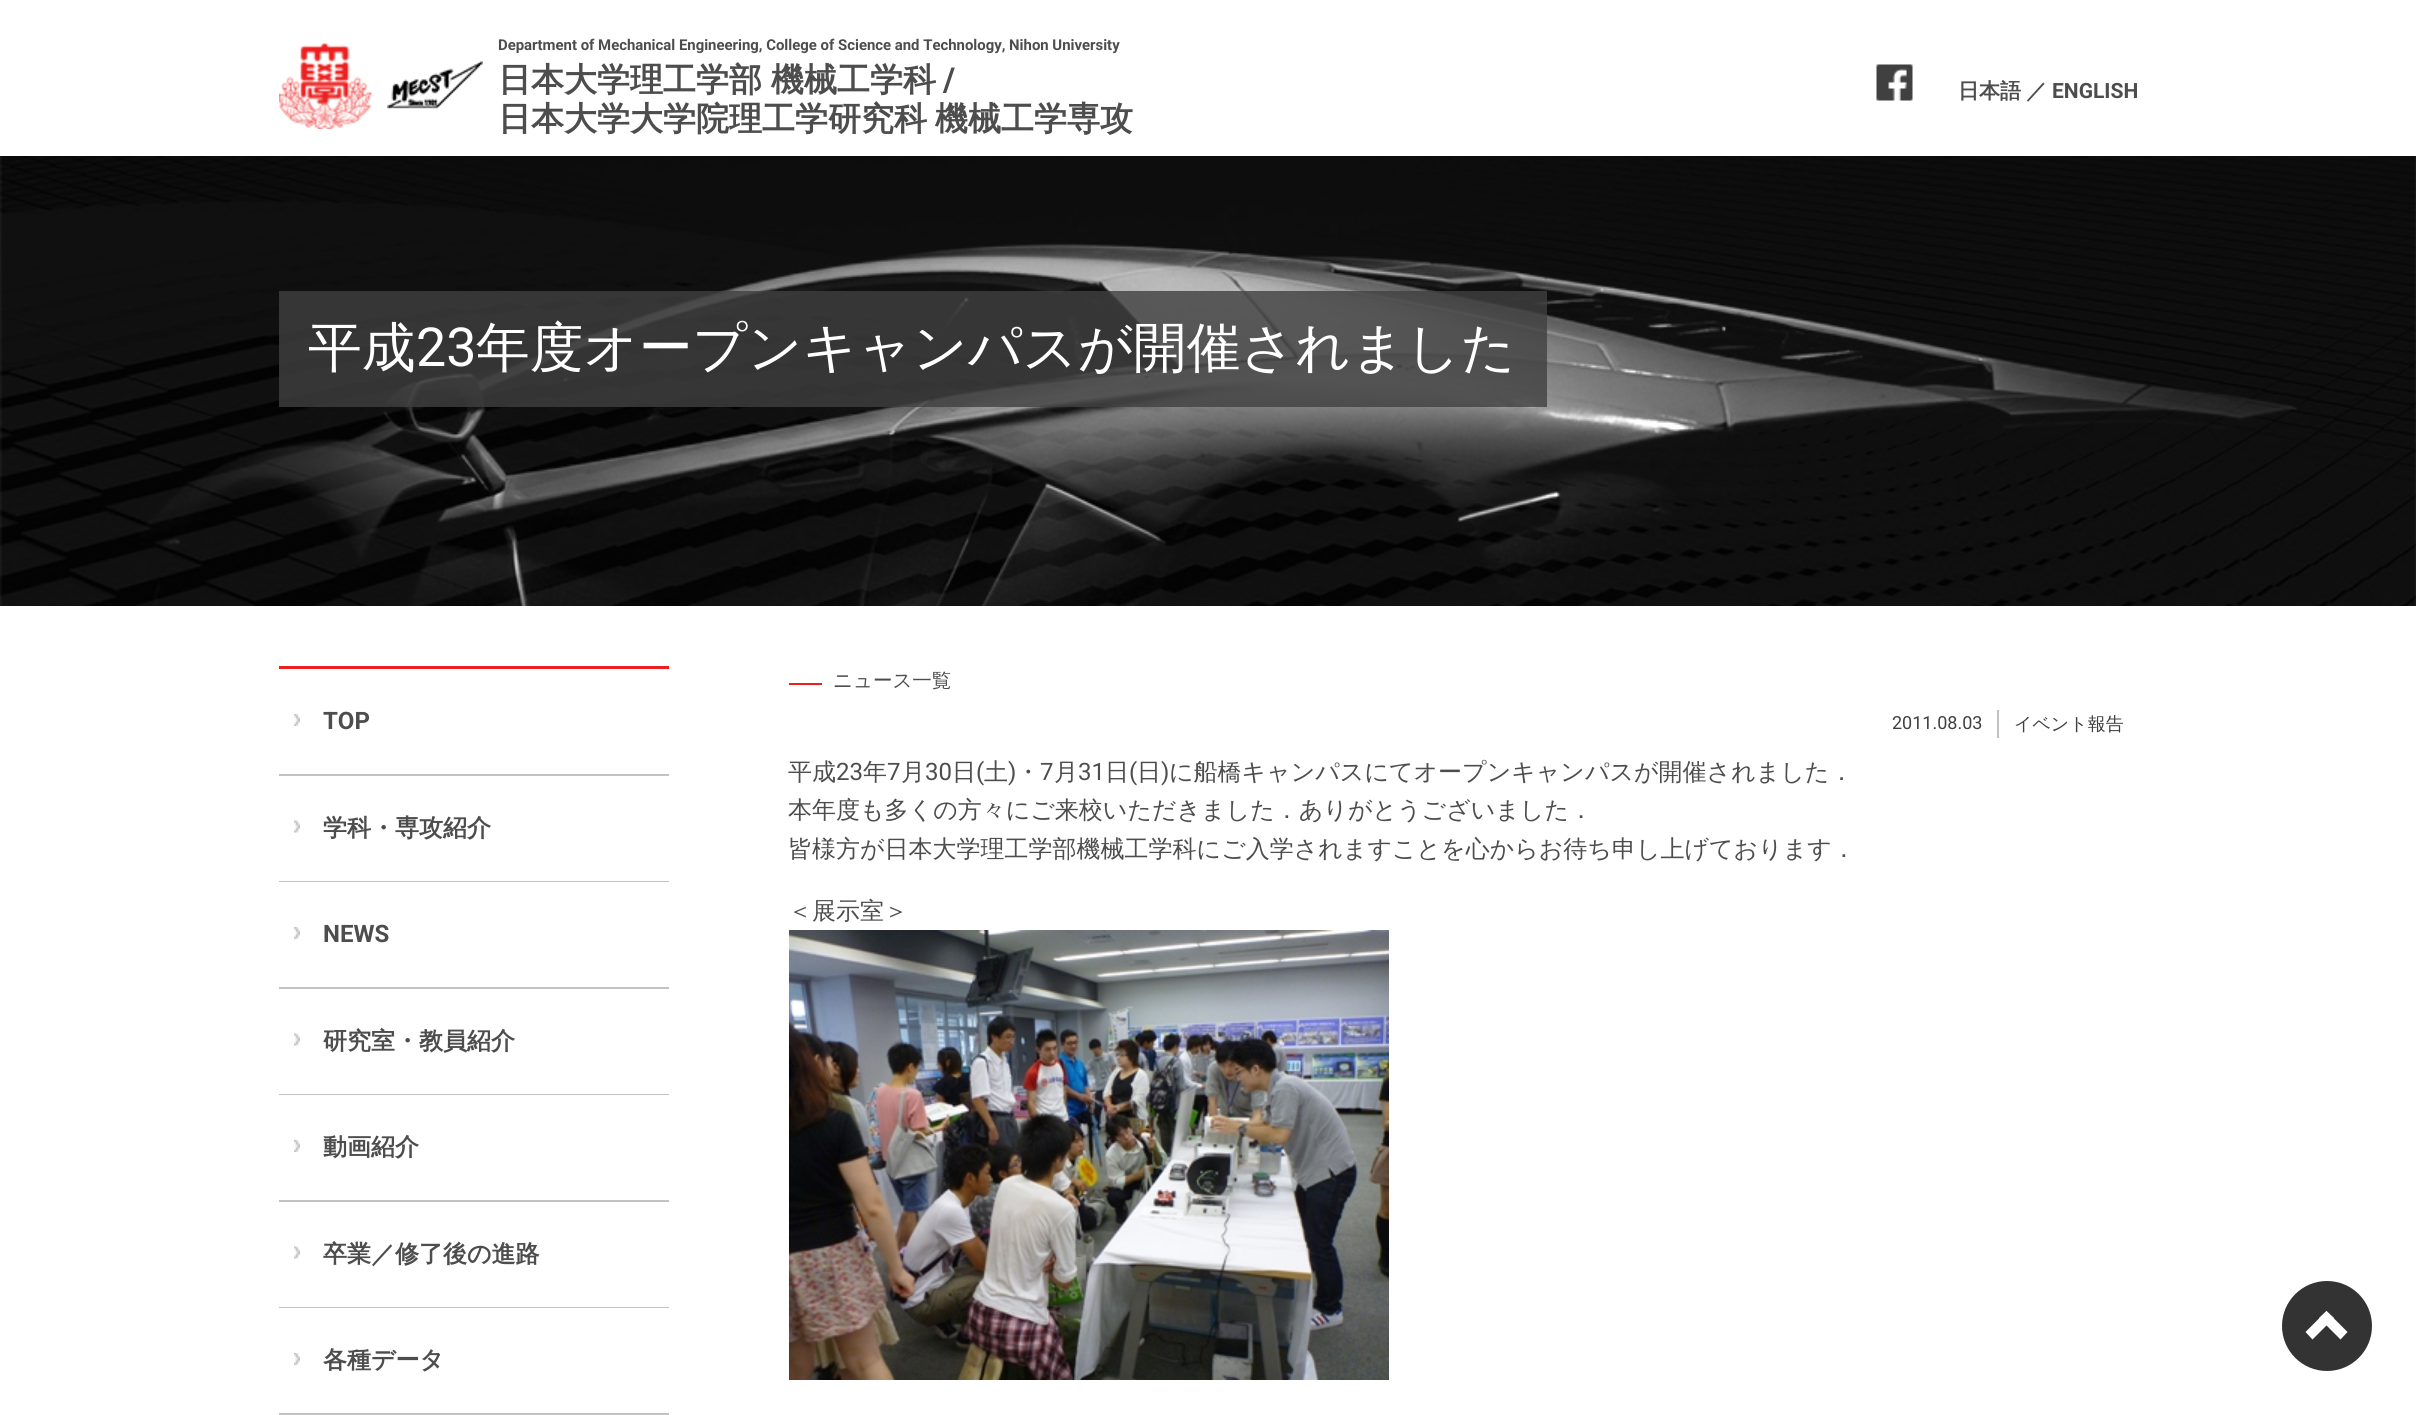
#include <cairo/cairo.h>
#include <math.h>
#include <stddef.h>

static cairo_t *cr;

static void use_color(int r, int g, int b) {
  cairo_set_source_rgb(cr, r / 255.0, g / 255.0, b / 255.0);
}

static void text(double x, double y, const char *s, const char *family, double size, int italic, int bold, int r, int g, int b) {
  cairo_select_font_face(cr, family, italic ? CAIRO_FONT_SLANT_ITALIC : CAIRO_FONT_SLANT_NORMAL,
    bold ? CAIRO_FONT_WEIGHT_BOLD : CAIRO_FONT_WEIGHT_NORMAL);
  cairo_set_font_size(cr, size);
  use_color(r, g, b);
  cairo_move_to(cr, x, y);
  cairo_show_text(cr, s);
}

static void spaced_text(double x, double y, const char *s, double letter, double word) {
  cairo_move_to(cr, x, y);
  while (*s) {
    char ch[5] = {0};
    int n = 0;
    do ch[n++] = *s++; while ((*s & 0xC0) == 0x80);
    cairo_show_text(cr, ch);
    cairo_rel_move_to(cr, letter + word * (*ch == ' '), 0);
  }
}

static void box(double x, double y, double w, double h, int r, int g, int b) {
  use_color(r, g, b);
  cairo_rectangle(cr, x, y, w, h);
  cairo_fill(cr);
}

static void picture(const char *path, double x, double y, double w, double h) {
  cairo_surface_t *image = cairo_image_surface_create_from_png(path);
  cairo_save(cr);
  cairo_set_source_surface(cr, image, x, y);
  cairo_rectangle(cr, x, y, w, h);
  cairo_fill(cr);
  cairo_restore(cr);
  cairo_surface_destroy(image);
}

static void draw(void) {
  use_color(255, 255, 255);
  cairo_paint(cr);
  picture("img_01.png", 279, 43, 93, 86);
  picture("img_02.png", 387, 61, 96, 48);
  picture("img_03.png", 1876, 64, 37, 37);
  picture("img_04.png", 0, 156, 2416, 450);
  cairo_set_source_rgba(cr, 0.251, 0.251, 0.251, 0.8);
  cairo_rectangle(cr, 279, 291, 1268, 116);
  cairo_fill(cr);
  box(279, 666, 390, 3, 235, 33, 33);
  box(279, 774, 390, 2, 194, 194, 194);
  picture("img_05.png", 294, 714, 6, 12);
  box(279, 881, 390, 1, 194, 194, 194);
  picture("img_06.png", 294, 820, 6, 13);
  box(279, 987, 390, 2, 194, 194, 194);
  picture("img_05.png", 294, 927, 6, 12);
  box(279, 1094, 390, 1, 194, 194, 194);
  picture("img_06.png", 294, 1033, 6, 13);
  box(279, 1200, 390, 2, 194, 194, 194);
  picture("img_05.png", 294, 1140, 6, 12);
  box(279, 1307, 390, 1, 194, 194, 194);
  picture("img_06.png", 294, 1246, 6, 13);
  box(279, 1413, 390, 2, 194, 194, 194);
  picture("img_05.png", 294, 1353, 6, 12);
  box(789, 683, 33, 2, 235, 33, 33);
  box(1997, 710, 2, 28, 194, 194, 194);
  picture("img_07.png", 789, 930, 600, 450);
  use_color(51, 51, 51);
  cairo_arc(cr, 2327, 1326, 45, 0, 2 * M_PI);
  cairo_fill(cr);
  use_color(255, 255, 255);
  cairo_new_path(cr);
  cairo_move_to(cr, 2326.5, 1311);
  cairo_line_to(cr, 2334, 1318);
  cairo_line_to(cr, 2312.5, 1339.5);
  cairo_line_to(cr, 2305.5, 1332);
  cairo_close_path(cr);
  cairo_fill(cr);
  cairo_new_path(cr);
  cairo_move_to(cr, 2326.5, 1311);
  cairo_line_to(cr, 2347.5, 1332);
  cairo_line_to(cr, 2340.5, 1339.5);
  cairo_line_to(cr, 2319, 1318);
  cairo_close_path(cr);
  cairo_fill(cr);
  text(498, 50, "Department of Mechanical Engineering, College of Science and Technology, Nihon University", "Roboto", 14.9, 0, 1, 77, 77, 77);
  cairo_select_font_face(cr, "WenQuanYi Zen Hei", CAIRO_FONT_SLANT_NORMAL, CAIRO_FONT_WEIGHT_BOLD);
  cairo_set_font_size(cr, 33);
  spaced_text(498, 91, "日本大学理工学部 機械工学科", 0, -1);
  text(943, 91, "/", "Roboto", 33, 0, 1, 77, 77, 77);
  cairo_select_font_face(cr, "WenQuanYi Zen Hei", CAIRO_FONT_SLANT_NORMAL, CAIRO_FONT_WEIGHT_BOLD);
  spaced_text(498, 130, "日本大学大学院理工学研究科 機械工学専攻", 0, -2);
  text(1958, 98, "日本語", "WenQuanYi Zen Hei", 21, 0, 1, 77, 77, 77);
  text(2026, 98, "／", "WenQuanYi Zen Hei", 21, 0, 1, 77, 77, 77);
  text(2052, 98, "ENGLISH", "Roboto", 21, 0, 1, 77, 77, 77);
  text(308, 366, "平成", "WenQuanYi Zen Hei Medium", 53.8, 0, 0, 255, 255, 255);
  text(416, 366, "23", "Roboto", 53.8, 0, 0, 255, 255, 255);
  text(476, 366, "年度オープンキャンパスが開催されました", "WenQuanYi Zen Hei Medium", 53.8, 0, 0, 255, 255, 255);
  text(323, 729, "TOP", "Roboto", 24, 0, 1, 77, 77, 77);
  text(323, 836, "学科・専攻紹介", "WenQuanYi Zen Hei", 24, 0, 1, 77, 77, 77);
  text(323, 942, "NEWS", "Roboto", 24, 0, 1, 77, 77, 77);
  text(323, 1049, "研究室・教員紹介", "WenQuanYi Zen Hei", 24, 0, 1, 77, 77, 77);
  text(323, 1155, "動画紹介", "WenQuanYi Zen Hei", 24, 0, 1, 77, 77, 77);
  text(323, 1262, "卒業／修了後の進路", "WenQuanYi Zen Hei", 24, 0, 1, 77, 77, 77);
  text(323, 1368, "各種データ", "WenQuanYi Zen Hei", 24, 0, 1, 77, 77, 77);
  text(833, 687, "ニュース一覧", "WenQuanYi Zen Hei Medium", 19.5, 0, 0, 77, 77, 77);
  text(1892, 729, "2011.08.03", "Roboto", 18, 0, 0, 64, 64, 64);
  text(2014, 730, "イベント報告", "WenQuanYi Zen Hei Medium", 18, 0, 0, 64, 64, 64);
  text(788, 780, "平成", "WenQuanYi Zen Hei Medium", 24, 0, 0, 77, 77, 77);
  text(836, 780, "23", "Roboto", 24, 0, 0, 77, 77, 77);
  text(863, 780, "年", "WenQuanYi Zen Hei Medium", 24, 0, 0, 77, 77, 77);
  text(887, 780, "7", "Roboto", 24, 0, 0, 77, 77, 77);
  text(901, 780, "月", "WenQuanYi Zen Hei Medium", 24, 0, 0, 77, 77, 77);
  text(925, 780, "30", "Roboto", 24, 0, 0, 77, 77, 77);
  text(952, 780, "日", "WenQuanYi Zen Hei Medium", 24, 0, 0, 77, 77, 77);
  text(976, 780, "(", "Roboto", 24, 0, 0, 77, 77, 77);
  text(984, 780, "土", "WenQuanYi Zen Hei Medium", 24, 0, 0, 77, 77, 77);
  text(1008, 780, ")", "Roboto", 24, 0, 0, 77, 77, 77);
  text(1016, 780, "・", "WenQuanYi Zen Hei Medium", 24, 0, 0, 77, 77, 77);
  text(1040, 780, "7", "Roboto", 24, 0, 0, 77, 77, 77);
  text(1054, 780, "月", "WenQuanYi Zen Hei Medium", 24, 0, 0, 77, 77, 77);
  text(1078, 780, "31", "Roboto", 24, 0, 0, 77, 77, 77);
  text(1105, 780, "日", "WenQuanYi Zen Hei Medium", 24, 0, 0, 77, 77, 77);
  text(1129, 780, "(", "Roboto", 24, 0, 0, 77, 77, 77);
  text(1137, 780, "日", "WenQuanYi Zen Hei Medium", 24, 0, 0, 77, 77, 77);
  text(1161, 780, ")", "Roboto", 24, 0, 0, 77, 77, 77);
  text(1169, 780, "に船橋キャンパスにてオープンキャンパスが開催されました．", "WenQuanYi Zen Hei Medium", 24, 0, 0, 77, 77, 77);
  text(788, 818, "本年度も多くの方々にご来校いただきました．ありがとうございました．", "WenQuanYi Zen Hei Medium", 24, 0, 0, 77, 77, 77);
  text(788, 857, "皆様方が日本大学理工学部機械工学科にご入学されますことを心からお待ち申し上げております．", "WenQuanYi Zen Hei Medium", 24, 0, 0, 77, 77, 77);
  text(788, 919, "＜展示室＞", "WenQuanYi Zen Hei Medium", 24, 0, 0, 77, 77, 77);
}

int main(void) {
  cairo_surface_t *surface = cairo_image_surface_create(CAIRO_FORMAT_RGB24, 2416, 1415);
  cr = cairo_create(surface);
  cairo_font_options_t *options = cairo_font_options_create();
  cairo_font_options_set_hint_metrics(options, CAIRO_HINT_METRICS_OFF);
  cairo_font_options_set_hint_style(options, CAIRO_HINT_STYLE_NONE);
  cairo_set_font_options(cr, options);
  cairo_set_miter_limit(cr, 4);
  draw();
  cairo_surface_write_to_png(surface, "out.png");
  cairo_font_options_destroy(options);
  cairo_destroy(cr);
  cairo_surface_destroy(surface);
  return 0;
}
